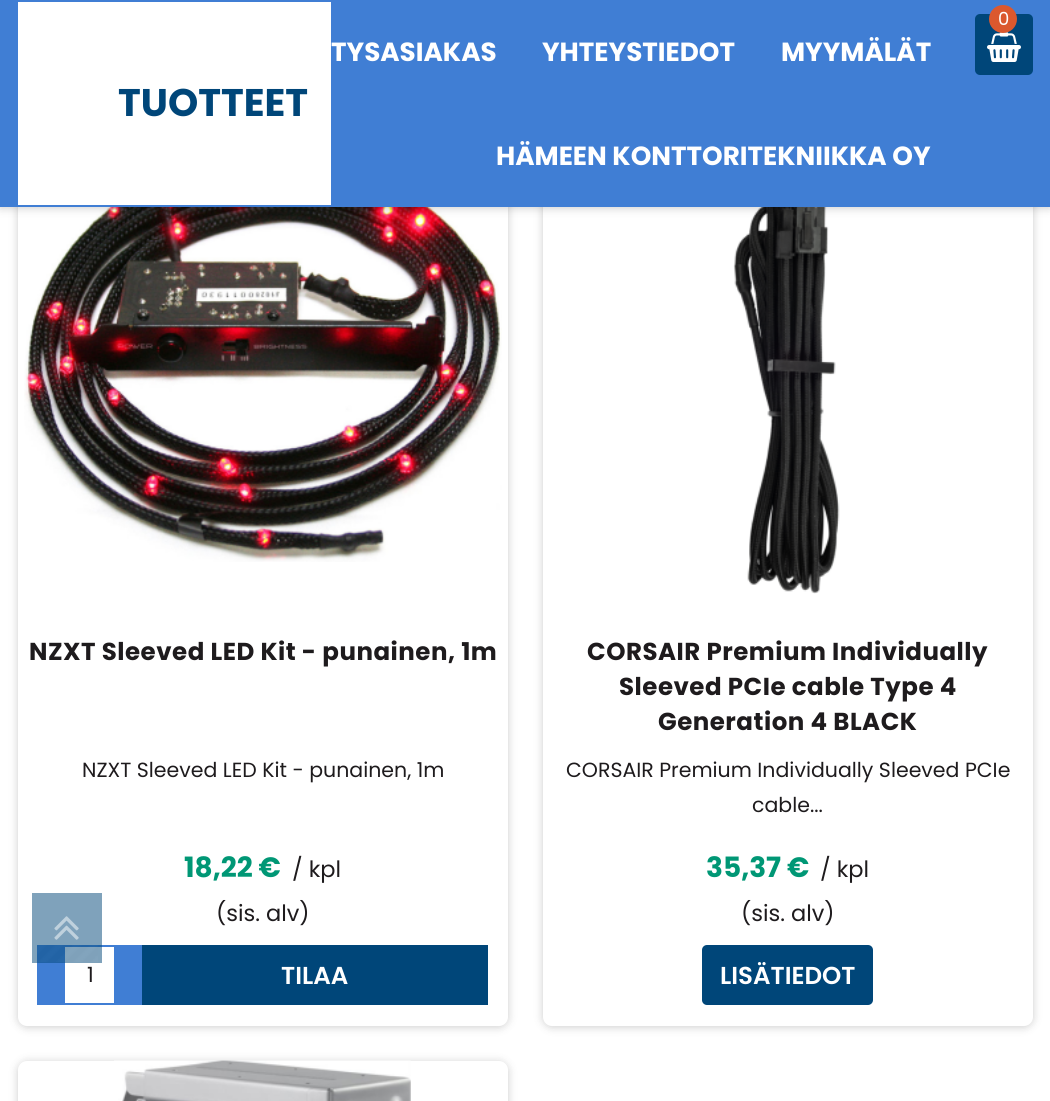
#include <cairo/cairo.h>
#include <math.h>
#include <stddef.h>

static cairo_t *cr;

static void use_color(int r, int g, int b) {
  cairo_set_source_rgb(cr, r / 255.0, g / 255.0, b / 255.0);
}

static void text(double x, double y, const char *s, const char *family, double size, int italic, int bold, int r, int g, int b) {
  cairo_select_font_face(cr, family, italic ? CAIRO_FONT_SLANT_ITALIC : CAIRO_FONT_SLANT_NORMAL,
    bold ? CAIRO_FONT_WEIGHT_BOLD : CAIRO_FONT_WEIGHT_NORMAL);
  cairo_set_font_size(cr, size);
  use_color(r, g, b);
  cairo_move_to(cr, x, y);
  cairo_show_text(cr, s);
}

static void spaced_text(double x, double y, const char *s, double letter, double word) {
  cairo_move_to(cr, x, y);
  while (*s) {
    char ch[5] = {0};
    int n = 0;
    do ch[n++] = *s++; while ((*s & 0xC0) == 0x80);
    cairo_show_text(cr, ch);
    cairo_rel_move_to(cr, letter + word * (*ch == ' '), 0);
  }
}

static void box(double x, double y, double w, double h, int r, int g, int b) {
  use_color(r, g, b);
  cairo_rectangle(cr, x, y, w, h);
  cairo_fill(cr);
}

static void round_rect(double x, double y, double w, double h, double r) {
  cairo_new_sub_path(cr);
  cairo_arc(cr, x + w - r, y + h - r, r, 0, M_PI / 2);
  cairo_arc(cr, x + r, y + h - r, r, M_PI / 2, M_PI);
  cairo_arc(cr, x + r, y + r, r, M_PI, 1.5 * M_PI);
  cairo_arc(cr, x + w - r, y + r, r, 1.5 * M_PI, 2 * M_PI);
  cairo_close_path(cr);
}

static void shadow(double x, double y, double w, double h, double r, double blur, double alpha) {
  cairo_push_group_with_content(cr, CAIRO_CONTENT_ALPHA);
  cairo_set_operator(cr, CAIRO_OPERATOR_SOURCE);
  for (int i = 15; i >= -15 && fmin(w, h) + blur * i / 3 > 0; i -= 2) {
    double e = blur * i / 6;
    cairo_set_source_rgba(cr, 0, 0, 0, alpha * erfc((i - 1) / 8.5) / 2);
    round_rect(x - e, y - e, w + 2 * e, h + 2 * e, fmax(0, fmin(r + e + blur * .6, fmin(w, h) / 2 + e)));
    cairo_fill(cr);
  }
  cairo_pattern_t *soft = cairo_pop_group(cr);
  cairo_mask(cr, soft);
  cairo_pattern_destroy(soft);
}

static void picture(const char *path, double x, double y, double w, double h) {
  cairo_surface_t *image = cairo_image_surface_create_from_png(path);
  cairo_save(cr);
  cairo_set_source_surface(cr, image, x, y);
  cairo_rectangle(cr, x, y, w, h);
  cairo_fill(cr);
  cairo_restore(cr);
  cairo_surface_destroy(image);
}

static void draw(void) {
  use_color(255, 255, 255);
  cairo_paint(cr);
  use_color(0, 0, 0);
  shadow(18, 119, 490, 908, 9, 4.5, 0.2);
  use_color(255, 255, 255);
  round_rect(18, 117, 490, 909, 9);
  cairo_fill(cr);
  picture("img_02.png", 24, 207, 478, 355);
  use_color(0, 0, 0);
  shadow(543, 119, 490, 908, 9, 4.5, 0.2);
  use_color(255, 255, 255);
  round_rect(543, 117, 490, 909, 9);
  cairo_fill(cr);
  picture("img_03.png", 733, 207, 107, 387);
  use_color(0, 0, 0);
  shadow(0, 2, 1050, 206, 0, 4.5, 0.2);
  box(0, 0, 1050, 207, 64, 126, 212);
  use_color(0, 70, 121);
  round_rect(975, 14, 58, 61, 5);
  cairo_fill(cr);
  picture("img_01.png", 987, 32, 34, 30);
  use_color(219, 88, 46);
  cairo_arc(cr, 1003, 19, 14, 0, 2 * M_PI);
  cairo_fill(cr);
  box(18, 2, 313, 203, 255, 255, 255);
  box(37, 945, 26, 60, 64, 126, 212);
  cairo_rectangle(cr, 64, 946, 51, 58);
  cairo_stroke(cr);
  box(116, 945, 26, 60, 64, 126, 212);
  box(142, 945, 346, 60, 0, 70, 121);
  round_rect(702, 945, 171, 60, 5);
  cairo_fill(cr);
  use_color(0, 0, 0);
  shadow(18, 1062, 490, 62, 9, 4.5, 0.2);
  use_color(255, 255, 255);
  round_rect(18, 1061, 490, 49, 9);
  cairo_fill(cr);
  picture("img_04.png", 114, 1060, 297, 41);
  cairo_set_source_rgba(cr, 0, 0.275, 0.475, 0.5);
  cairo_rectangle(cr, 32, 893, 70, 70);
  cairo_fill(cr);
  picture("img_05.png", 37, 945, 61, 17);
  picture("img_06.png", 54, 916, 25, 24);
  text(998, 25, "0", "Poppins", 18, 0, 0, 255, 255, 255);
  text(118, 116, "TUOTTEET", "Poppins", 38.5, 0, 1, 0, 70, 121);
  text(331, 61, "TYSASIAKAS", "Poppins", 26.25, 0, 1, 255, 255, 255);
  text(542, 61, "YHTEYSTIEDOT", "Poppins", 26.25, 0, 1, 255, 255, 255);
  text(781, 61, "MYYMÄLÄT", "Poppins", 26.25, 0, 1, 255, 255, 255);
  text(496, 165, "HÄMEEN KONTTORITEKNIIKKA OY", "Poppins", 26.25, 0, 1, 255, 255, 255);
  cairo_set_font_size(cr, 24.5);
  use_color(30, 27, 29);
  spaced_text(29, 660, "NZXT Sleeved LED Kit - punainen, 1m", 0.5, 0);
  text(82, 777, "NZXT Sleeved LED Kit - punainen, 1m", "Poppins", 20.5, 0, 0, 30, 27, 29);
  text(184, 877, "18,22 €", "Poppins", 28, 0, 1, 0, 151, 117);
  text(292, 877, "/ kpl", "Poppins", 22.5, 0, 0, 30, 27, 29);
  text(216, 921, "(sis. alv)", "Poppins", 22.5, 0, 0, 30, 27, 29);
  text(87, 982, "1", "Poppins", 21, 0, 0, 30, 27, 29);
  text(281, 984, "TILAA", "Poppins SemiBold", 24.5, 0, 0, 255, 255, 255);
  cairo_select_font_face(cr, "Poppins", CAIRO_FONT_SLANT_NORMAL, CAIRO_FONT_WEIGHT_BOLD);
  use_color(30, 27, 29);
  spaced_text(587, 660, "CORSAIR Premium Individually", 0.5, 0);
  spaced_text(619, 695, "Sleeved PCIe cable Type 4", 0.5, 0);
  spaced_text(658, 730, "Generation 4 BLACK", 0.5, 0);
  text(566, 777, "CORSAIR Premium Individually Sleeved PCIe", "Poppins", 20.5, 0, 0, 30, 27, 29);
  text(752, 812, "cable...", "Poppins", 20.5, 0, 0, 30, 27, 29);
  text(706, 877, "35,37 €", "Poppins", 28, 0, 1, 0, 151, 117);
  text(820, 877, "/ kpl", "Poppins", 22.5, 0, 0, 30, 27, 29);
  text(741, 921, "(sis. alv)", "Poppins", 22.5, 0, 0, 30, 27, 29);
  text(720, 984, "LISÄTIEDOT", "Poppins SemiBold", 24.5, 0, 0, 255, 255, 255);
}

int main(void) {
  cairo_surface_t *surface = cairo_image_surface_create(CAIRO_FORMAT_RGB24, 1050, 1101);
  cr = cairo_create(surface);
  cairo_font_options_t *options = cairo_font_options_create();
  cairo_font_options_set_hint_metrics(options, CAIRO_HINT_METRICS_OFF);
  cairo_font_options_set_hint_style(options, CAIRO_HINT_STYLE_NONE);
  cairo_set_font_options(cr, options);
  cairo_set_miter_limit(cr, 4);
  draw();
  cairo_surface_write_to_png(surface, "out.png");
  cairo_font_options_destroy(options);
  cairo_destroy(cr);
  cairo_surface_destroy(surface);
  return 0;
}
